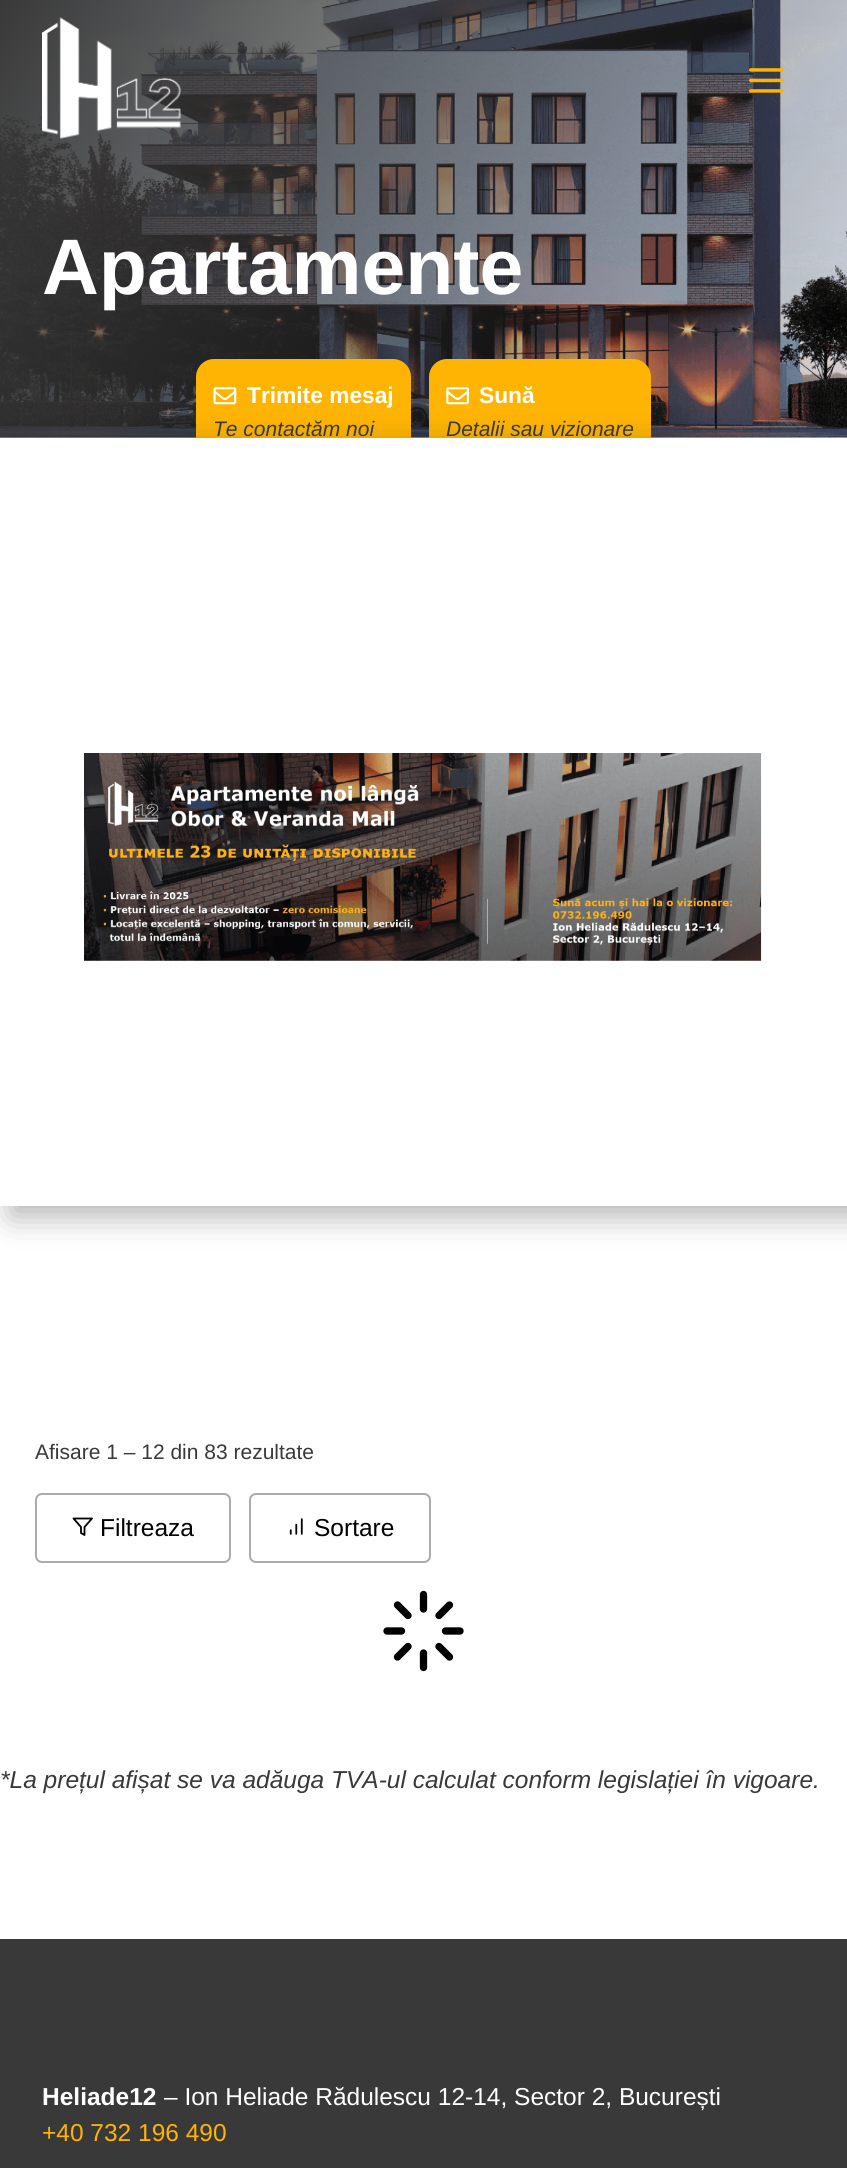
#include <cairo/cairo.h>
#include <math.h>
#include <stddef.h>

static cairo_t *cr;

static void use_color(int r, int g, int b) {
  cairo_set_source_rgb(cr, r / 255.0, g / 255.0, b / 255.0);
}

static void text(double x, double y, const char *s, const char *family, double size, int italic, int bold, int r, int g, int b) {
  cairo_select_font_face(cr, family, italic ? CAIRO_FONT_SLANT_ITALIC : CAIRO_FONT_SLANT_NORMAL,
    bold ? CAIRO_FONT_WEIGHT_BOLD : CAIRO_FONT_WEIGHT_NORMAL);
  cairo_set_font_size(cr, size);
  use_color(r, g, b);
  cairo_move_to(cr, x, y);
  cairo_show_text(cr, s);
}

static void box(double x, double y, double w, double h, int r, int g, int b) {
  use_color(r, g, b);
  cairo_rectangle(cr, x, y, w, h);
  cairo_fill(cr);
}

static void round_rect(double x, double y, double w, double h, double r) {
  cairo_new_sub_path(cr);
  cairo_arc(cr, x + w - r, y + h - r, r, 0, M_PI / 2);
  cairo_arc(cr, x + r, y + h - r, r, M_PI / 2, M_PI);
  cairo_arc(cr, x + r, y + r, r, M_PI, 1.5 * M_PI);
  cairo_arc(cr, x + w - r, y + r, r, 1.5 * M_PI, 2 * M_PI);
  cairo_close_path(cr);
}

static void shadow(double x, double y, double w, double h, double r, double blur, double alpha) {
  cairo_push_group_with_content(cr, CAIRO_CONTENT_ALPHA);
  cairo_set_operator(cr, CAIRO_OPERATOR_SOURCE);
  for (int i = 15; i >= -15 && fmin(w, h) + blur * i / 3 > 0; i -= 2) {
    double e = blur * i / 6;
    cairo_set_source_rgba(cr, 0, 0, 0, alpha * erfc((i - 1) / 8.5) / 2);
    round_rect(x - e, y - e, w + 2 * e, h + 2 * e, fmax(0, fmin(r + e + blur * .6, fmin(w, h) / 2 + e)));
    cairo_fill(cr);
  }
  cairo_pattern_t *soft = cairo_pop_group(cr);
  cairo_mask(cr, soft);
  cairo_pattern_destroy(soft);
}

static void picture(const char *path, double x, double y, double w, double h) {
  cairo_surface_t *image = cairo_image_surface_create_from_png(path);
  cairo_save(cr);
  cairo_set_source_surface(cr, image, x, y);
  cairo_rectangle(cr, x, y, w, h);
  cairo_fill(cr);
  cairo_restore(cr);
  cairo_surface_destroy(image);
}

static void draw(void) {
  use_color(255, 255, 255);
  cairo_paint(cr);
  picture("img_03.png", 0, 0, 847, 438);
  picture("img_01.png", 42, 17, 139, 122);
  picture("img_02.png", 749, 68, 35, 25);
  use_color(255, 180, 3);
  round_rect(196, 359, 215, 103, 18);
  cairo_fill(cr);
  picture("img_04.png", 213, 387, 24, 18);
  round_rect(429, 359, 222, 103, 18);
  cairo_fill(cr);
  picture("img_05.png", 446, 387, 23, 18);
  use_color(0, 0, 0);
  shadow(11, 448, 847, 768, 0, 16, 0.3);
  box(0, 438, 847, 768, 255, 255, 255);
  picture("img_06.png", 84, 753, 678, 208);
  round_rect(36, 1494, 194, 68, 6);
  use_color(171, 171, 171);
  cairo_stroke(cr);
  cairo_new_path(cr);
  cairo_move_to(cr, 92, 1518.5);
  cairo_line_to(cr, 73.5, 1518.5);
  cairo_line_to(cr, 81, 1527);
  cairo_line_to(cr, 81, 1533);
  cairo_line_to(cr, 84.5, 1535);
  cairo_line_to(cr, 84.5, 1527);
  cairo_close_path(cr);
  use_color(0, 0, 0);
  cairo_set_line_width(cr, 1.8);
  cairo_set_line_cap(cr, CAIRO_LINE_CAP_ROUND);
  cairo_set_line_join(cr, CAIRO_LINE_JOIN_ROUND);
  cairo_stroke(cr);
  round_rect(250, 1494, 180, 68, 6);
  use_color(171, 171, 171);
  cairo_set_line_width(cr, 2);
  cairo_set_line_cap(cr, CAIRO_LINE_CAP_BUTT);
  cairo_set_line_join(cr, CAIRO_LINE_JOIN_MITER);
  cairo_stroke(cr);
  picture("img_07.png", 289, 1518, 14, 17);
  cairo_new_path(cr);
  cairo_move_to(cr, 423.5, 1594.5);
  cairo_line_to(cr, 423.5, 1609);
  use_color(0, 0, 0);
  cairo_set_line_width(cr, 7.3);
  cairo_set_line_cap(cr, CAIRO_LINE_CAP_ROUND);
  cairo_set_line_join(cr, CAIRO_LINE_JOIN_ROUND);
  cairo_stroke(cr);
  cairo_new_path(cr);
  cairo_move_to(cr, 423.5, 1653);
  cairo_line_to(cr, 423.5, 1667.5);
  cairo_stroke(cr);
  cairo_new_path(cr);
  cairo_move_to(cr, 397.5, 1605);
  cairo_line_to(cr, 408, 1615.5);
  cairo_move_to(cr, 439, 1646.5);
  cairo_line_to(cr, 449.5, 1657);
  cairo_stroke(cr);
  cairo_new_path(cr);
  cairo_move_to(cr, 387, 1631);
  cairo_line_to(cr, 401.5, 1631);
  cairo_stroke(cr);
  cairo_new_path(cr);
  cairo_move_to(cr, 445.5, 1631);
  cairo_line_to(cr, 460, 1631);
  cairo_stroke(cr);
  cairo_new_path(cr);
  cairo_move_to(cr, 397.5, 1657);
  cairo_line_to(cr, 408, 1646.5);
  cairo_move_to(cr, 439, 1615.5);
  cairo_line_to(cr, 449.5, 1605);
  cairo_stroke(cr);
  box(0, 1939, 847, 229, 57, 57, 57);
  text(42, 294, "Apartamente", "Liberation Sans", 78.75, 0, 1, 255, 255, 255);
  text(247, 403, "Trimite mesaj", "Liberation Sans", 22.75, 0, 1, 255, 255, 255);
  text(213, 436, "Te contactăm noi", "Liberation Sans", 21, 1, 0, 57, 57, 57);
  text(479, 403, "Sună", "Liberation Sans", 22.75, 0, 1, 255, 255, 255);
  text(446, 436, "Detalii sau vizionare", "Liberation Sans", 21, 1, 0, 57, 57, 57);
  text(35, 1459, "Afisare 1 – 12 din 83 rezultate", "Liberation Sans", 21, 0, 0, 57, 57, 57);
  text(100, 1536, "Filtreaza", "Liberation Sans", 24.5, 0, 0, 0, 0, 0);
  text(314, 1536, "Sortare", "Liberation Sans", 24.5, 0, 0, 0, 0, 0);
  text(0, 1788, "*La prețul afișat se va adăuga TVA-ul calculat conform legislației în vigoare.", "Liberation Sans", 24.5, 1, 0, 57, 57, 57);
  text(42, 2105, "Heliade12", "Liberation Sans", 24.5, 0, 1, 255, 255, 255);
  text(164, 2105, "– Ion Heliade Rădulescu 12-14, Sector 2, București", "Liberation Sans", 24.5, 0, 0, 255, 255, 255);
  text(42, 2141, "+40 732 196 490", "Liberation Sans", 24.5, 0, 0, 255, 180, 3);
}

int main(void) {
  cairo_surface_t *surface = cairo_image_surface_create(CAIRO_FORMAT_RGB24, 847, 2168);
  cr = cairo_create(surface);
  cairo_font_options_t *options = cairo_font_options_create();
  cairo_font_options_set_hint_metrics(options, CAIRO_HINT_METRICS_OFF);
  cairo_font_options_set_hint_style(options, CAIRO_HINT_STYLE_NONE);
  cairo_set_font_options(cr, options);
  cairo_set_miter_limit(cr, 4);
  draw();
  cairo_surface_write_to_png(surface, "out.png");
  cairo_font_options_destroy(options);
  cairo_destroy(cr);
  cairo_surface_destroy(surface);
  return 0;
}
